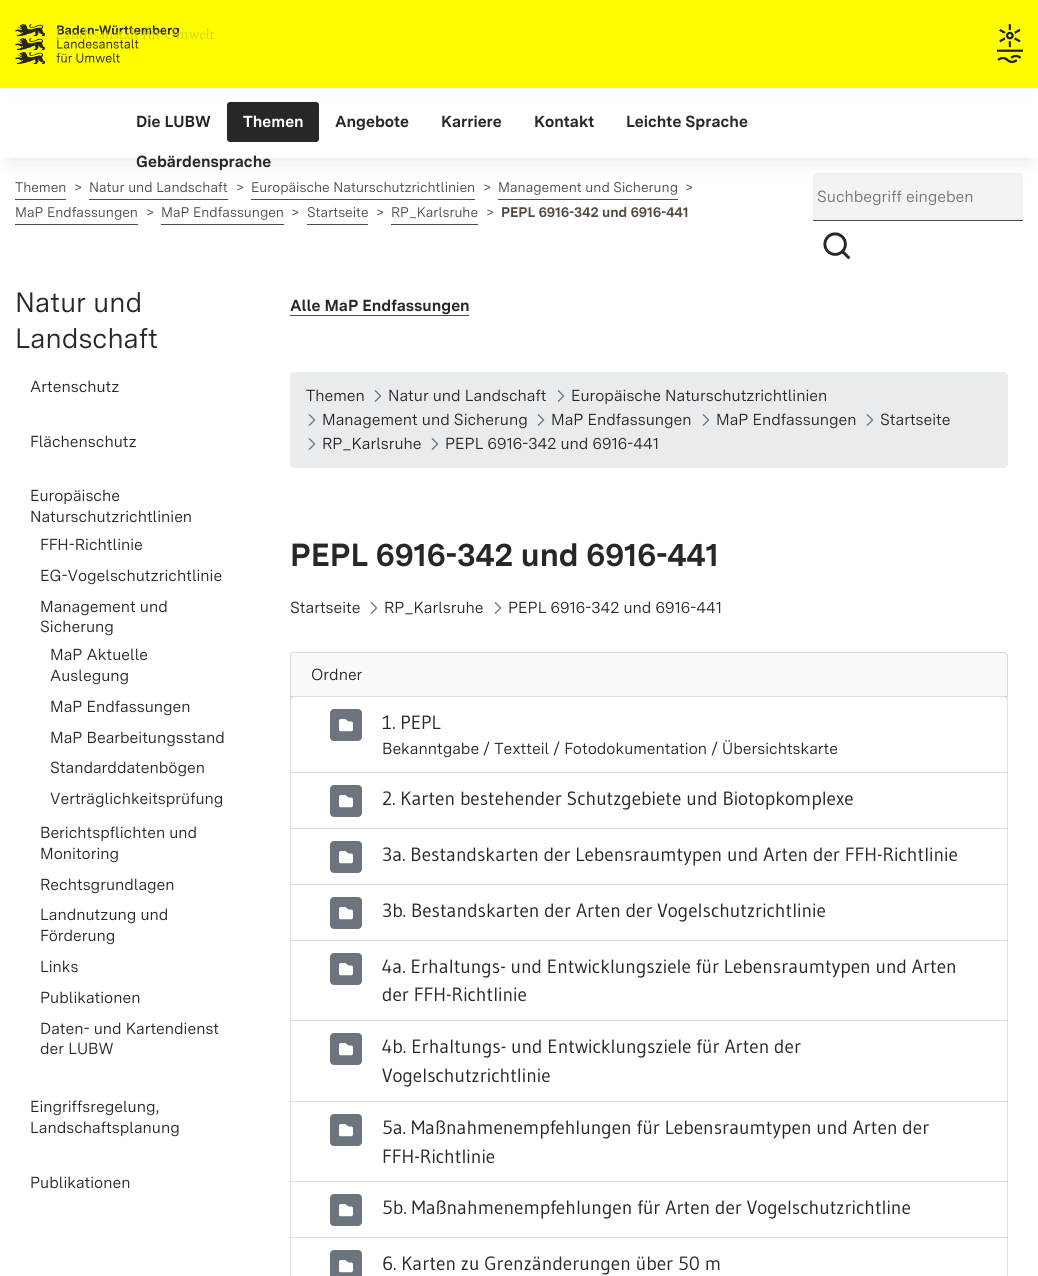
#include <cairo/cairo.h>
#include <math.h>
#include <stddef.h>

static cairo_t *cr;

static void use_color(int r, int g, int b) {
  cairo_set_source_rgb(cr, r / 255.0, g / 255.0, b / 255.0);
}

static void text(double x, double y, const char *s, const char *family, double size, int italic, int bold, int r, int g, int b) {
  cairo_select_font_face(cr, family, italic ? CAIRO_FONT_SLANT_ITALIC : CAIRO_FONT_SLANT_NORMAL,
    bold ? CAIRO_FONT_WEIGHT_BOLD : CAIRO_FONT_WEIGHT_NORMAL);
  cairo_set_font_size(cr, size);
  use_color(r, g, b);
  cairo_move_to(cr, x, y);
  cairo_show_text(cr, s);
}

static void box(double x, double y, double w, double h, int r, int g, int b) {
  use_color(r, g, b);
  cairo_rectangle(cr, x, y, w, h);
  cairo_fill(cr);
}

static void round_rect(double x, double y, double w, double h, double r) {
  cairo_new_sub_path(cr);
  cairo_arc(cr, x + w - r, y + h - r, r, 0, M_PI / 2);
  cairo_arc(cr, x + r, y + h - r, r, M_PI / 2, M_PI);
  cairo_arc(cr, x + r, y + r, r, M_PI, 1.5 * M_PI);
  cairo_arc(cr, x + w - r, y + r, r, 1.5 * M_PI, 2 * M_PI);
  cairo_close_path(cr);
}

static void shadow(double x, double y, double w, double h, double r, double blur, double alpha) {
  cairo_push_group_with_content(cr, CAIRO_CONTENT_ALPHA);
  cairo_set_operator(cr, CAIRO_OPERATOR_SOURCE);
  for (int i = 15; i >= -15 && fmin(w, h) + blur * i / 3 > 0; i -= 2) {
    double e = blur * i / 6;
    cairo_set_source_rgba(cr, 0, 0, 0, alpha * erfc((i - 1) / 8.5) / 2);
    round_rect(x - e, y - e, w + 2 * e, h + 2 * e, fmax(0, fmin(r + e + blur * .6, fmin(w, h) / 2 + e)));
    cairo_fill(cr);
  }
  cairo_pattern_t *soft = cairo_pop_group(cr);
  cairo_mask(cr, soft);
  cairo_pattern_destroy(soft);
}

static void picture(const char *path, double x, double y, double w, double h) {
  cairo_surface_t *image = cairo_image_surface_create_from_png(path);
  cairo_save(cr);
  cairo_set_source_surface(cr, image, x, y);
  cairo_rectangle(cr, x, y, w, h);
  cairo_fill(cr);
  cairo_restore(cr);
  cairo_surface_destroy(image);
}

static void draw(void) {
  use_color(255, 255, 255);
  cairo_paint(cr);
  box(0, 0, 1038, 88, 255, 252, 0);
  picture("img_01.png", 15, 24, 164, 40);
  picture("img_02.png", 997, 24, 26, 39);
  use_color(244, 243, 241);
  cairo_new_path(cr);
  cairo_move_to(cr, 816, 173);
  cairo_line_to(cr, 1020, 173);
  cairo_curve_to(cr, 1021.5, 173, 1023, 174.5, 1023, 176);
  cairo_line_to(cr, 1023, 220);
  cairo_line_to(cr, 813, 220);
  cairo_line_to(cr, 813, 176);
  cairo_curve_to(cr, 813, 174.5, 814.5, 173, 816, 173);
  cairo_close_path(cr);
  cairo_fill(cr);
  use_color(42, 38, 35);
  shadow(8, 108, 1022, 54, 0, 9, 0.1);
  box(0, 97, 1038, 61, 255, 255, 255);
  use_color(42, 38, 35);
  round_rect(227, 102, 92, 40, 3);
  cairo_fill(cr);
  box(15, 199, 51, 1, 82, 73, 66);
  box(89, 199, 139, 1, 82, 73, 66);
  box(251, 199, 224, 1, 82, 73, 66);
  box(498, 199, 180, 1, 82, 73, 66);
  box(15, 224, 123, 1, 82, 73, 66);
  box(161, 224, 123, 1, 82, 73, 66);
  box(307, 224, 61, 1, 82, 73, 66);
  box(391, 224, 87, 1, 82, 73, 66);
  box(813, 220, 210, 1, 82, 73, 66);
  picture("img_03.png", 823, 232, 28, 28);
  box(290, 315, 179, 1, 82, 73, 66);
  use_color(233, 236, 239);
  round_rect(290, 372, 718, 96, 4);
  cairo_fill(cr);
  picture("img_04.png", 374, 390, 8, 12);
  picture("img_04.png", 557, 390, 8, 12);
  picture("img_04.png", 308, 414, 8, 12);
  picture("img_04.png", 537, 414, 8, 12);
  picture("img_04.png", 702, 414, 8, 12);
  picture("img_04.png", 866, 414, 8, 12);
  picture("img_04.png", 308, 438, 8, 12);
  picture("img_04.png", 431, 438, 8, 12);
  picture("img_05.png", 370, 602, 8, 12);
  picture("img_05.png", 494, 602, 8, 12);
  use_color(248, 249, 250);
  cairo_new_path(cr);
  cairo_move_to(cr, 294, 652.5);
  cairo_line_to(cr, 1004, 652.5);
  cairo_curve_to(cr, 1006, 652.5, 1007.5, 654, 1007.5, 656);
  cairo_line_to(cr, 1007.5, 696.5);
  cairo_line_to(cr, 290.5, 696.5);
  cairo_line_to(cr, 290.5, 656);
  cairo_curve_to(cr, 290.5, 654, 292, 652.5, 294, 652.5);
  cairo_close_path(cr);
  cairo_fill_preserve(cr);
  use_color(217, 218, 219);
  cairo_set_line_width(cr, 1);
  cairo_stroke(cr);
  use_color(255, 255, 255);
  cairo_new_path(cr);
  cairo_move_to(cr, 294, 696);
  cairo_line_to(cr, 1004, 696);
  cairo_curve_to(cr, 1006, 696, 1008, 698, 1008, 700);
  cairo_line_to(cr, 1008, 773);
  cairo_line_to(cr, 290, 773);
  cairo_line_to(cr, 290, 700);
  cairo_curve_to(cr, 290, 698, 292, 696, 294, 696);
  cairo_close_path(cr);
  cairo_fill(cr);
  cairo_set_source_rgba(cr, 0, 0, 0, 0.12);
  cairo_new_path(cr);
  cairo_move_to(cr, 294, 697);
  cairo_line_to(cr, 1004, 697);
  cairo_curve_to(cr, 1006, 697, 1008, 699, 1008, 701);
  cairo_curve_to(cr, 1008, 698, 1007, 696, 1004, 696);
  cairo_line_to(cr, 294, 696);
  cairo_line_to(cr, 291, 697);
  cairo_line_to(cr, 290, 698);
  cairo_line_to(cr, 290, 701);
  cairo_curve_to(cr, 290, 699, 292, 697, 294, 697);
  cairo_close_path(cr);
  cairo_fill(cr);
  cairo_new_path(cr);
  cairo_move_to(cr, 1007, 773);
  cairo_line_to(cr, 1008, 773);
  cairo_line_to(cr, 1008, 700);
  cairo_curve_to(cr, 1008, 698, 1006, 696, 1004, 696);
  cairo_line_to(cr, 1003, 696);
  cairo_curve_to(cr, 1005, 696, 1007, 698, 1007, 700);
  cairo_close_path(cr);
  cairo_fill(cr);
  cairo_new_path(cr);
  cairo_move_to(cr, 294, 696);
  cairo_curve_to(cr, 292, 696, 290, 698, 290, 700);
  cairo_line_to(cr, 290, 773);
  cairo_line_to(cr, 291, 773);
  cairo_line_to(cr, 291, 700);
  cairo_curve_to(cr, 291, 698, 293, 696, 295, 696);
  cairo_close_path(cr);
  cairo_fill(cr);
  use_color(108, 117, 125);
  round_rect(330, 709, 32, 32, 4);
  cairo_fill(cr);
  picture("img_06.png", 339, 719, 14, 13);
  box(290, 772, 718, 1, 223, 223, 223);
  cairo_set_source_rgba(cr, 0, 0, 0, 0.12);
  cairo_rectangle(cr, 1007, 772, 1, 57);
  cairo_fill(cr);
  cairo_rectangle(cr, 290, 772, 1, 57);
  cairo_fill(cr);
  use_color(108, 117, 125);
  round_rect(330, 785, 32, 32, 4);
  cairo_fill(cr);
  picture("img_06.png", 339, 795, 14, 13);
  box(290, 828, 718, 1, 223, 223, 223);
  cairo_set_source_rgba(cr, 0, 0, 0, 0.12);
  cairo_rectangle(cr, 1007, 828, 1, 57);
  cairo_fill(cr);
  cairo_rectangle(cr, 290, 828, 1, 57);
  cairo_fill(cr);
  use_color(108, 117, 125);
  round_rect(330, 841, 32, 32, 4);
  cairo_fill(cr);
  picture("img_06.png", 339, 851, 14, 13);
  box(290, 884, 718, 1, 223, 223, 223);
  cairo_set_source_rgba(cr, 0, 0, 0, 0.12);
  cairo_rectangle(cr, 1007, 884, 1, 57);
  cairo_fill(cr);
  cairo_rectangle(cr, 290, 884, 1, 57);
  cairo_fill(cr);
  use_color(108, 117, 125);
  round_rect(330, 897, 32, 32, 4);
  cairo_fill(cr);
  picture("img_06.png", 339, 907, 14, 13);
  box(290, 940, 718, 1, 223, 223, 223);
  cairo_set_source_rgba(cr, 0, 0, 0, 0.12);
  cairo_rectangle(cr, 1007, 940, 1, 81);
  cairo_fill(cr);
  cairo_rectangle(cr, 290, 940, 1, 81);
  cairo_fill(cr);
  use_color(108, 117, 125);
  round_rect(330, 953, 32, 32, 4);
  cairo_fill(cr);
  picture("img_06.png", 339, 963, 14, 13);
  box(290, 1020, 718, 1, 223, 223, 223);
  cairo_set_source_rgba(cr, 0, 0, 0, 0.12);
  cairo_rectangle(cr, 1007, 1020, 1, 82);
  cairo_fill(cr);
  cairo_rectangle(cr, 290, 1020, 1, 82);
  cairo_fill(cr);
  use_color(108, 117, 125);
  round_rect(330, 1033, 32, 32, 4);
  cairo_fill(cr);
  picture("img_06.png", 339, 1043, 14, 13);
  box(290, 1101, 718, 1, 223, 223, 223);
  cairo_set_source_rgba(cr, 0, 0, 0, 0.12);
  cairo_rectangle(cr, 1007, 1101, 1, 81);
  cairo_fill(cr);
  cairo_rectangle(cr, 290, 1101, 1, 81);
  cairo_fill(cr);
  use_color(108, 117, 125);
  round_rect(330, 1114, 32, 32, 4);
  cairo_fill(cr);
  picture("img_06.png", 339, 1124, 14, 13);
  box(290, 1181, 718, 1, 223, 223, 223);
  cairo_set_source_rgba(cr, 0, 0, 0, 0.12);
  cairo_rectangle(cr, 1007, 1181, 1, 57);
  cairo_fill(cr);
  cairo_rectangle(cr, 290, 1181, 1, 57);
  cairo_fill(cr);
  use_color(108, 117, 125);
  round_rect(330, 1194, 32, 32, 4);
  cairo_fill(cr);
  picture("img_06.png", 339, 1204, 14, 13);
  box(290, 1237, 718, 1, 223, 223, 223);
  cairo_set_source_rgba(cr, 0, 0, 0, 0.12);
  cairo_new_path(cr);
  cairo_move_to(cr, 1003, 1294);
  cairo_line_to(cr, 1004, 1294);
  cairo_curve_to(cr, 1006, 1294, 1008, 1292, 1008, 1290);
  cairo_line_to(cr, 1008, 1237);
  cairo_line_to(cr, 1007, 1237);
  cairo_line_to(cr, 1007, 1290);
  cairo_curve_to(cr, 1007, 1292, 1005, 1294, 1003, 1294);
  cairo_close_path(cr);
  cairo_fill(cr);
  cairo_new_path(cr);
  cairo_move_to(cr, 290, 1237);
  cairo_line_to(cr, 290, 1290);
  cairo_curve_to(cr, 290, 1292, 292, 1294, 294, 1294);
  cairo_line_to(cr, 295, 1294);
  cairo_curve_to(cr, 293, 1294, 291, 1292, 291, 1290);
  cairo_line_to(cr, 291, 1237);
  cairo_close_path(cr);
  cairo_fill(cr);
  use_color(108, 117, 125);
  round_rect(330, 1250, 32, 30, 4);
  cairo_fill(cr);
  picture("img_07.png", 339, 1260, 14, 13);
  text(55, 39, "Landesanstalt für Umwelt", "EB Garamond", 16, 0, 0, 216, 213, 6);
  text(136, 127, "Die LUBW", "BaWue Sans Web", 16, 0, 1, 42, 38, 35);
  text(243, 127, "Themen", "BaWue Sans Web", 16, 0, 1, 255, 255, 255);
  text(335, 127, "Angebote", "BaWue Sans Web", 16, 0, 1, 42, 38, 35);
  text(441, 127, "Karriere", "BaWue Sans Web", 16, 0, 1, 42, 38, 35);
  text(534, 127, "Kontakt", "BaWue Sans Web", 16, 0, 1, 42, 38, 35);
  text(626, 127, "Leichte Sprache", "BaWue Sans Web", 16, 0, 1, 42, 38, 35);
  text(136, 167, "Gebärdensprache", "BaWue Sans Web", 16, 0, 1, 42, 38, 35);
  text(15, 192, "Themen", "BaWue Sans Web", 14, 0, 0, 82, 73, 66);
  text(74, 192, ">", "BaWue Sans Web", 14, 0, 0, 82, 73, 66);
  text(89, 192, "Natur und Landschaft", "BaWue Sans Web", 14, 0, 0, 82, 73, 66);
  text(236, 192, ">", "BaWue Sans Web", 14, 0, 0, 82, 73, 66);
  text(251, 192, "Europäische Naturschutzrichtlinien", "BaWue Sans Web", 14, 0, 0, 82, 73, 66);
  text(483, 192, ">", "BaWue Sans Web", 14, 0, 0, 82, 73, 66);
  text(498, 192, "Management und Sicherung", "BaWue Sans Web", 14, 0, 0, 82, 73, 66);
  text(685, 192, ">", "BaWue Sans Web", 14, 0, 0, 82, 73, 66);
  text(15, 217, "MaP Endfassungen", "BaWue Sans Web", 14, 0, 0, 82, 73, 66);
  text(146, 217, ">", "BaWue Sans Web", 14, 0, 0, 82, 73, 66);
  text(161, 217, "MaP Endfassungen", "BaWue Sans Web", 14, 0, 0, 82, 73, 66);
  text(291, 217, ">", "BaWue Sans Web", 14, 0, 0, 82, 73, 66);
  text(307, 217, "Startseite", "BaWue Sans Web", 14, 0, 0, 82, 73, 66);
  text(376, 217, ">", "BaWue Sans Web", 14, 0, 0, 82, 73, 66);
  text(391, 217, "RP_Karlsruhe", "BaWue Sans Web", 14, 0, 0, 82, 73, 66);
  text(486, 217, ">", "BaWue Sans Web", 14, 0, 0, 82, 73, 66);
  text(501, 217, "PEPL 6916-342 und 6916-441", "BaWue Sans Web", 14, 0, 1, 82, 73, 66);
  text(817, 202, "Suchbegriff eingeben", "BaWue Sans Web", 16, 0, 0, 117, 117, 117);
  text(15, 312, "Natur und", "BaWue Sans Web", 28, 0, 0, 42, 38, 35);
  text(15, 348, "Landschaft", "BaWue Sans Web", 28, 0, 0, 42, 38, 35);
  text(30, 392, "Artenschutz", "BaWue Sans Web", 16, 0, 0, 42, 38, 35);
  text(30, 447, "Flächenschutz", "BaWue Sans Web", 16, 0, 0, 42, 38, 35);
  text(30, 501, "Europäische", "BaWue Sans Web", 16, 0, 0, 42, 38, 35);
  text(30, 522, "Naturschutzrichtlinien", "BaWue Sans Web", 16, 0, 0, 42, 38, 35);
  text(40, 550, "FFH-Richtlinie", "BaWue Sans Web", 16, 0, 0, 42, 38, 35);
  text(40, 581, "EG-Vogelschutzrichtlinie", "BaWue Sans Web", 16, 0, 0, 42, 38, 35);
  text(40, 612, "Management und", "BaWue Sans Web", 16, 0, 0, 42, 38, 35);
  text(40, 632, "Sicherung", "BaWue Sans Web", 16, 0, 0, 42, 38, 35);
  text(50, 660, "MaP Aktuelle", "BaWue Sans Web", 16, 0, 0, 42, 38, 35);
  text(50, 681, "Auslegung", "BaWue Sans Web", 16, 0, 0, 42, 38, 35);
  text(50, 712, "MaP Endfassungen", "BaWue Sans Web", 16, 0, 0, 42, 38, 35);
  text(50, 743, "MaP Bearbeitungsstand", "BaWue Sans Web", 16, 0, 0, 42, 38, 35);
  text(50, 773, "Standarddatenbögen", "BaWue Sans Web", 16, 0, 0, 42, 38, 35);
  text(50, 804, "Verträglichkeitsprüfung", "BaWue Sans Web", 16, 0, 0, 42, 38, 35);
  text(40, 838, "Berichtspflichten und", "BaWue Sans Web", 16, 0, 0, 42, 38, 35);
  text(40, 859, "Monitoring", "BaWue Sans Web", 16, 0, 0, 42, 38, 35);
  text(40, 890, "Rechtsgrundlagen", "BaWue Sans Web", 16, 0, 0, 42, 38, 35);
  text(40, 920, "Landnutzung und", "BaWue Sans Web", 16, 0, 0, 42, 38, 35);
  text(40, 941, "Förderung", "BaWue Sans Web", 16, 0, 0, 42, 38, 35);
  text(40, 972, "Links", "BaWue Sans Web", 16, 0, 0, 42, 38, 35);
  text(40, 1003, "Publikationen", "BaWue Sans Web", 16, 0, 0, 42, 38, 35);
  text(40, 1034, "Daten- und Kartendienst", "BaWue Sans Web", 16, 0, 0, 42, 38, 35);
  text(40, 1054, "der LUBW", "BaWue Sans Web", 16, 0, 0, 42, 38, 35);
  text(30, 1112, "Eingriffsregelung,", "BaWue Sans Web", 16, 0, 0, 42, 38, 35);
  text(30, 1133, "Landschaftsplanung", "BaWue Sans Web", 16, 0, 0, 42, 38, 35);
  text(30, 1188, "Publikationen", "BaWue Sans Web", 16, 0, 0, 42, 38, 35);
  text(290, 311, "Alle MaP Endfassungen", "BaWue Sans Web", 16, 0, 1, 42, 38, 35);
  text(306, 401, "Themen", "BaWue Sans Web", 16, 0, 0, 42, 38, 35);
  text(388, 401, "Natur und Landschaft", "BaWue Sans Web", 16, 0, 0, 42, 38, 35);
  text(571, 401, "Europäische Naturschutzrichtlinien", "BaWue Sans Web", 16, 0, 0, 42, 38, 35);
  text(322, 425, "Management und Sicherung", "BaWue Sans Web", 16, 0, 0, 42, 38, 35);
  text(551, 425, "MaP Endfassungen", "BaWue Sans Web", 16, 0, 0, 42, 38, 35);
  text(716, 425, "MaP Endfassungen", "BaWue Sans Web", 16, 0, 0, 42, 38, 35);
  text(880, 425, "Startseite", "BaWue Sans Web", 16, 0, 0, 42, 38, 35);
  text(322, 449, "RP_Karlsruhe", "BaWue Sans Web", 16, 0, 0, 42, 38, 35);
  text(445, 449, "PEPL 6916-342 und 6916-441", "BaWue Sans Web", 16, 0, 0, 42, 38, 35);
  text(290, 566, "PEPL 6916-342 und 6916-441", "BaWue Sans Web", 32, 0, 1, 42, 38, 35);
  text(290, 613, "Startseite", "BaWue Sans Web", 16, 0, 0, 42, 38, 35);
  text(384, 613, "RP_Karlsruhe", "BaWue Sans Web", 16, 0, 0, 42, 38, 35);
  text(508, 613, "PEPL 6916-342 und 6916-441", "BaWue Sans Web", 16, 0, 0, 42, 38, 35);
  text(311, 680, "Ordner", "BaWue Sans Web", 16, 0, 0, 42, 38, 35);
  text(382, 729, "1. PEPL", "Gudea", 19.2, 0, 0, 42, 38, 35);
  text(382, 754, "Bekanntgabe / Textteil / Fotodokumentation / Übersichtskarte", "BaWue Sans Web", 16, 0, 0, 42, 38, 35);
  text(382, 805, "2. Karten bestehender Schutzgebiete und Biotopkomplexe", "Gudea", 19.2, 0, 0, 42, 38, 35);
  text(382, 861, "3a. Bestandskarten der Lebensraumtypen und Arten der FFH-Richtlinie", "Gudea", 19.2, 0, 0, 42, 38, 35);
  text(382, 917, "3b. Bestandskarten der Arten der Vogelschutzrichtlinie", "Gudea", 19.2, 0, 0, 42, 38, 35);
  text(382, 973, "4a. Erhaltungs- und Entwicklungsziele für Lebensraumtypen und Arten", "Gudea", 19.2, 0, 0, 42, 38, 35);
  text(382, 1001, "der FFH-Richtlinie", "Gudea", 19.2, 0, 0, 42, 38, 35);
  text(382, 1053, "4b. Erhaltungs- und Entwicklungsziele für Arten der", "Gudea", 19.2, 0, 0, 42, 38, 35);
  text(382, 1082, "Vogelschutzrichtlinie", "Gudea", 19.2, 0, 0, 42, 38, 35);
  text(382, 1134, "5a. Maßnahmenempfehlungen für Lebensraumtypen und Arten der", "Gudea", 19.2, 0, 0, 42, 38, 35);
  text(382, 1163, "FFH-Richtlinie", "Gudea", 19.2, 0, 0, 42, 38, 35);
  text(382, 1214, "5b. Maßnahmenempfehlungen für Arten der Vogelschutzrichtline", "Gudea", 19.2, 0, 0, 42, 38, 35);
  text(382, 1270, "6. Karten zu Grenzänderungen über 50 m", "Gudea", 19.2, 0, 0, 42, 38, 35);
}

int main(void) {
  cairo_surface_t *surface = cairo_image_surface_create(CAIRO_FORMAT_RGB24, 1038, 1276);
  cr = cairo_create(surface);
  cairo_font_options_t *options = cairo_font_options_create();
  cairo_font_options_set_hint_metrics(options, CAIRO_HINT_METRICS_OFF);
  cairo_font_options_set_hint_style(options, CAIRO_HINT_STYLE_NONE);
  cairo_set_font_options(cr, options);
  cairo_set_miter_limit(cr, 4);
  draw();
  cairo_surface_write_to_png(surface, "out.png");
  cairo_font_options_destroy(options);
  cairo_destroy(cr);
  cairo_surface_destroy(surface);
  return 0;
}
